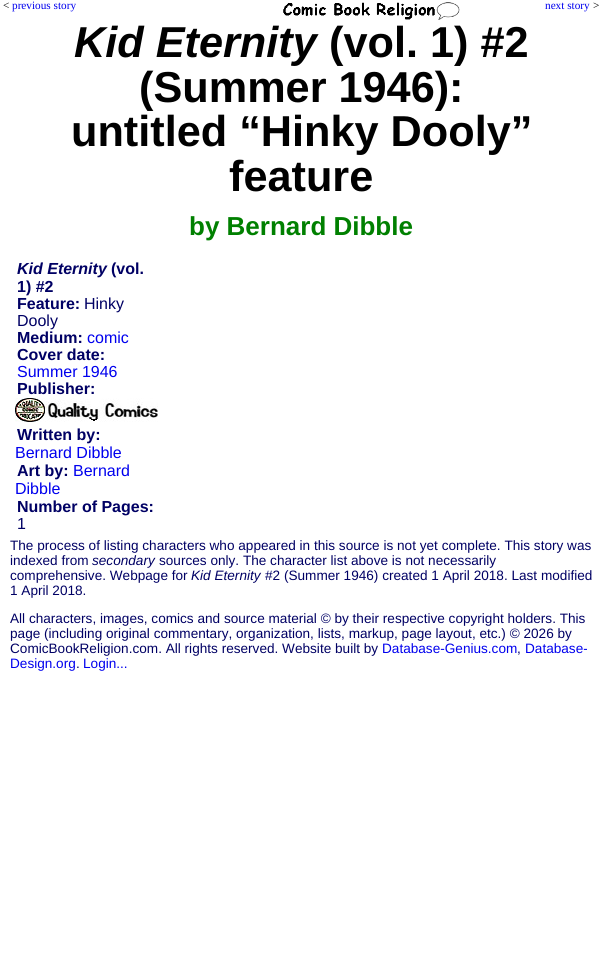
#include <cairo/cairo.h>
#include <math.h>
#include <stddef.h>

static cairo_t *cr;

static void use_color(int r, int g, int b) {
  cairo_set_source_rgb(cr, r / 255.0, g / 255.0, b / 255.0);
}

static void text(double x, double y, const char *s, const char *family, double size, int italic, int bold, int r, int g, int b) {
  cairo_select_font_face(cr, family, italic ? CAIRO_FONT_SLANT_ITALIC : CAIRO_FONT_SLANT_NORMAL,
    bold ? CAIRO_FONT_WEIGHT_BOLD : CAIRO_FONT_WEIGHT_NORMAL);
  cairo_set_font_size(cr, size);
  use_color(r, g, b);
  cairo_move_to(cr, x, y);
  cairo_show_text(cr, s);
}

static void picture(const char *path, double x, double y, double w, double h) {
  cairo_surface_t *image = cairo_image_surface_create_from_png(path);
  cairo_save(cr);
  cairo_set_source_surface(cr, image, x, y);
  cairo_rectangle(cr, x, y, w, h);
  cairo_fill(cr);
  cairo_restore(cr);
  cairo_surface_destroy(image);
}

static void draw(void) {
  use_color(255, 255, 255);
  cairo_paint(cr);
  picture("img_01.png", 283, 2, 177, 18);
  picture("img_02.png", 15, 398, 143, 24);
  text(3, 9, "<", "Liberation Serif", 11.25, 0, 0, 0, 0, 0);
  text(12, 9, "previous story", "Liberation Serif", 11.25, 0, 0, 0, 0, 238);
  text(545, 9, "next story", "Liberation Serif", 11.25, 0, 0, 0, 0, 238);
  text(593, 9, ">", "Liberation Serif", 11.25, 0, 0, 0, 0, 0);
  text(74, 57, "Kid Eternity", "Liberation Sans", 43.25, 1, 1, 0, 0, 0);
  text(329, 57, "(vol. 1) #2", "Liberation Sans", 43.25, 0, 1, 0, 0, 0);
  text(139, 102, "(Summer 1946):", "Liberation Sans", 43.25, 0, 1, 0, 0, 0);
  text(71, 146, "untitled “Hinky Dooly”", "Liberation Sans", 43.25, 0, 1, 0, 0, 0);
  text(229, 191, "feature", "Liberation Sans", 43.25, 0, 1, 0, 0, 0);
  text(189, 235, "by Bernard Dibble", "Liberation Sans", 26, 0, 1, 0, 128, 0);
  text(17, 274, "Kid Eternity", "Liberation Sans", 16, 1, 1, 0, 0, 100);
  text(111, 274, "(vol.", "Liberation Sans", 16, 0, 1, 0, 0, 100);
  text(17, 292, "1) #2", "Liberation Sans", 16, 0, 1, 0, 0, 100);
  text(17, 309, "Feature:", "Liberation Sans", 16, 0, 1, 0, 0, 100);
  text(84, 309, "Hinky", "Liberation Sans", 16, 0, 0, 0, 0, 100);
  text(17, 326, "Dooly", "Liberation Sans", 16, 0, 0, 0, 0, 100);
  text(17, 343, "Medium:", "Liberation Sans", 16, 0, 1, 0, 0, 100);
  text(87, 343, "comic", "Liberation Sans", 16, 0, 0, 0, 0, 238);
  text(17, 360, "Cover date:", "Liberation Sans", 16, 0, 1, 0, 0, 100);
  text(17, 377, "Summer 1946", "Liberation Sans", 16, 0, 0, 0, 0, 238);
  text(17, 394, "Publisher:", "Liberation Sans", 16, 0, 1, 0, 0, 100);
  text(17, 440, "Written by:", "Liberation Sans", 16, 0, 1, 0, 0, 100);
  text(15, 458, "Bernard Dibble", "Liberation Sans", 16, 0, 0, 0, 0, 238);
  text(17, 476, "Art by:", "Liberation Sans", 16, 0, 1, 0, 0, 100);
  text(73, 476, "Bernard", "Liberation Sans", 16, 0, 0, 0, 0, 238);
  text(15, 494, "Dibble", "Liberation Sans", 16, 0, 0, 0, 0, 238);
  text(17, 512, "Number of Pages:", "Liberation Sans", 16, 0, 1, 0, 0, 100);
  text(17, 529, "1", "Liberation Sans", 16, 0, 0, 0, 0, 100);
  text(10, 550, "The process of listing characters who appeared in this source is not yet complete. This story was", "Liberation Sans", 13.6, 0, 0, 0, 0, 100);
  text(10, 565, "indexed from", "Liberation Sans", 13.6, 0, 0, 0, 0, 100);
  text(92, 565, "secondary", "Liberation Sans", 13.6, 1, 0, 0, 0, 100);
  text(159, 565, "sources only. The character list above is not necessarily", "Liberation Sans", 13.6, 0, 0, 0, 0, 100);
  text(10, 580, "comprehensive. Webpage for", "Liberation Sans", 13.6, 0, 0, 0, 0, 100);
  text(191, 580, "Kid Eternity", "Liberation Sans", 13.6, 1, 0, 0, 0, 100);
  text(265, 580, "#2 (Summer 1946) created 1 April 2018. Last modified", "Liberation Sans", 13.6, 0, 0, 0, 0, 100);
  text(10, 595, "1 April 2018.", "Liberation Sans", 13.6, 0, 0, 0, 0, 100);
  text(10, 623, "All characters, images, comics and source material © by their respective copyright holders. This", "Liberation Sans", 13.6, 0, 0, 0, 0, 100);
  text(10, 638, "page (including original commentary, organization, lists, markup, page layout, etc.) © 2026 by", "Liberation Sans", 13.6, 0, 0, 0, 0, 100);
  text(10, 653, "ComicBookReligion.com. All rights reserved. Website built by", "Liberation Sans", 13.6, 0, 0, 0, 0, 100);
  text(382, 653, "Database-Genius.com", "Liberation Sans", 13.6, 0, 0, 0, 0, 238);
  text(517, 653, ",", "Liberation Sans", 13.6, 0, 0, 0, 0, 100);
  text(525, 653, "Database-", "Liberation Sans", 13.6, 0, 0, 0, 0, 238);
  text(10, 668, "Design.org", "Liberation Sans", 13.6, 0, 0, 0, 0, 238);
  text(76, 668, ".", "Liberation Sans", 13.6, 0, 0, 0, 0, 100);
  text(83, 668, "Login...", "Liberation Sans", 13.6, 0, 0, 0, 0, 238);
}

int main(void) {
  cairo_surface_t *surface = cairo_image_surface_create(CAIRO_FORMAT_RGB24, 602, 973);
  cr = cairo_create(surface);
  cairo_font_options_t *options = cairo_font_options_create();
  cairo_font_options_set_hint_metrics(options, CAIRO_HINT_METRICS_OFF);
  cairo_font_options_set_hint_style(options, CAIRO_HINT_STYLE_NONE);
  cairo_set_font_options(cr, options);
  cairo_set_miter_limit(cr, 4);
  draw();
  cairo_surface_write_to_png(surface, "out.png");
  cairo_font_options_destroy(options);
  cairo_destroy(cr);
  cairo_surface_destroy(surface);
  return 0;
}
